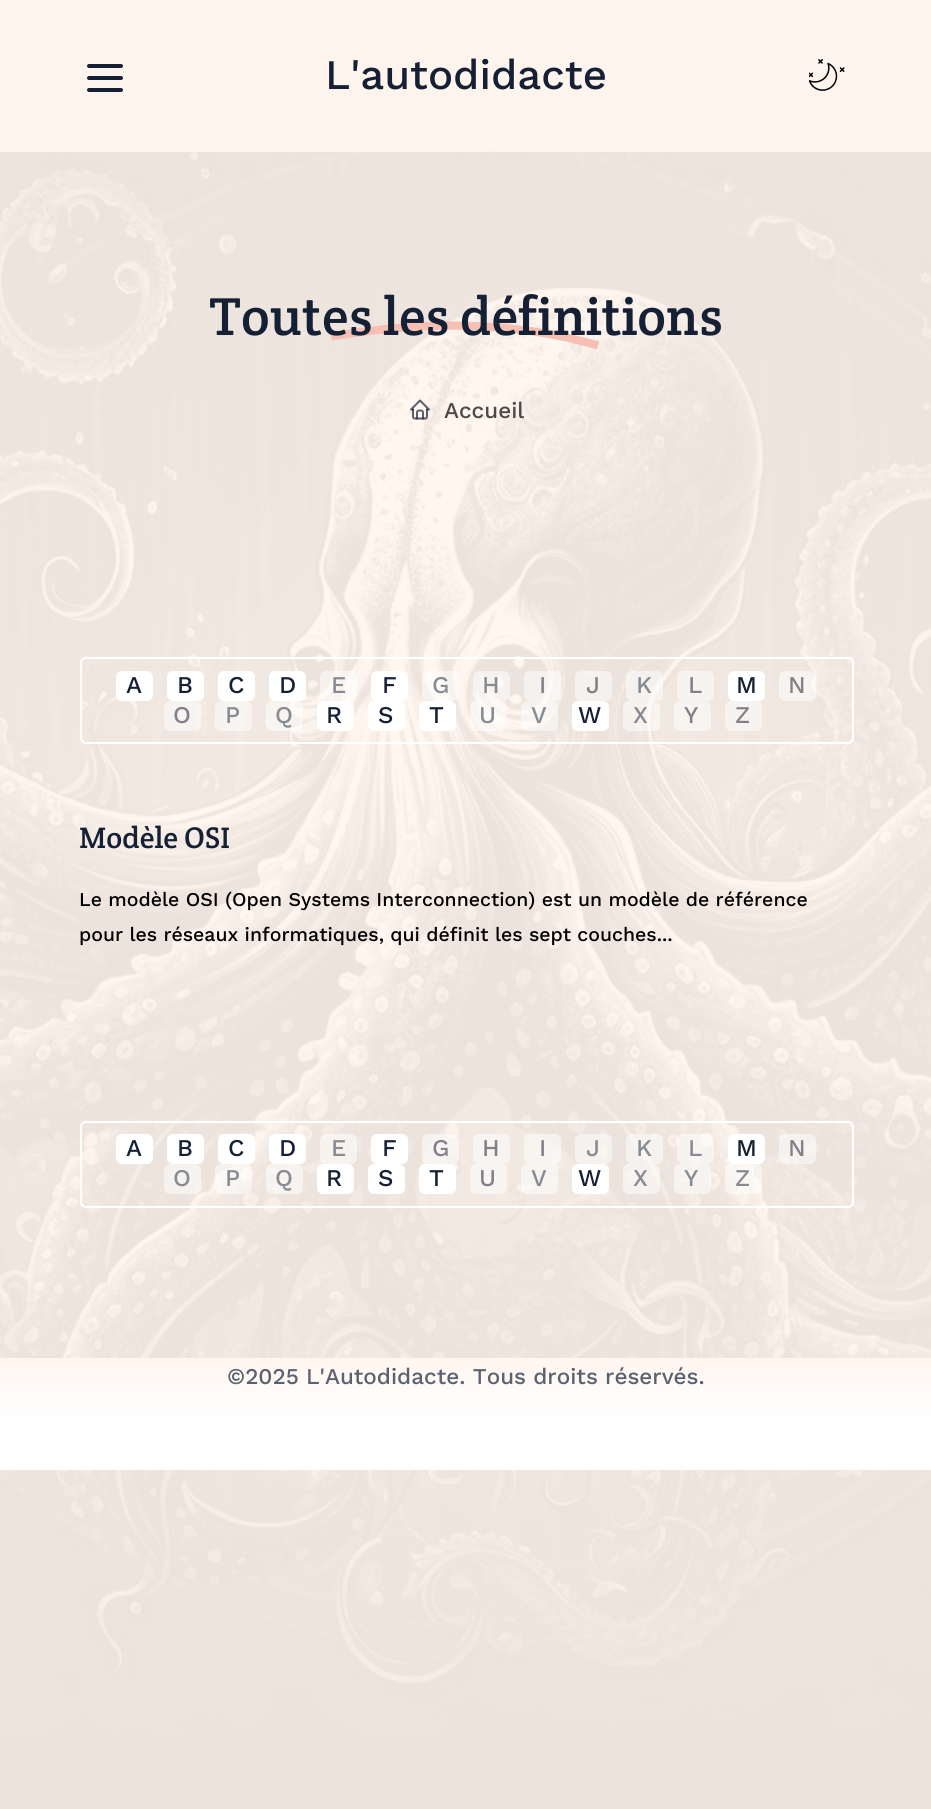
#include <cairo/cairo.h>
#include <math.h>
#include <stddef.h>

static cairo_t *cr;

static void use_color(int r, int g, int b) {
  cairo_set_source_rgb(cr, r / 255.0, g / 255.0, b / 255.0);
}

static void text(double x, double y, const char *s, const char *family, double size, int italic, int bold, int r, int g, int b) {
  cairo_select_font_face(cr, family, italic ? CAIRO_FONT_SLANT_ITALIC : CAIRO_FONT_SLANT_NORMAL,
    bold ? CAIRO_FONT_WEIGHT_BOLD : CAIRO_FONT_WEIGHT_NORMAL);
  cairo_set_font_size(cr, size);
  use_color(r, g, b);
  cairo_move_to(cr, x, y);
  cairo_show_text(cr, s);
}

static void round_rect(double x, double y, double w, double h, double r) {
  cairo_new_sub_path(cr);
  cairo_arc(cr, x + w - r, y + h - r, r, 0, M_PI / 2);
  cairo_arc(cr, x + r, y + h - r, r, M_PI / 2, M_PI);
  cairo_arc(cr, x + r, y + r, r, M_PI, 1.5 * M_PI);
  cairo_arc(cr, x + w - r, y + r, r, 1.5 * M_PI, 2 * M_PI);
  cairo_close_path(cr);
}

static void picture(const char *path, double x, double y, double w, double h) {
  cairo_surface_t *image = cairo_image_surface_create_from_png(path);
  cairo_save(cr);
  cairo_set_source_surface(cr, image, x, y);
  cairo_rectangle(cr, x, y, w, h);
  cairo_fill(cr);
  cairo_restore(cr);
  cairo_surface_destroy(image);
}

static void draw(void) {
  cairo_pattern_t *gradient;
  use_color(255, 246, 239);
  cairo_paint(cr);
  picture("img_01.png", 0, 0, 931, 1809);
  cairo_set_source_rgba(cr, 1, 0.965, 0.937, 0.9);
  cairo_rectangle(cr, 0, 0, 931, 152);
  cairo_fill(cr);
  cairo_new_path(cr);
  cairo_move_to(cr, 89, 66);
  cairo_line_to(cr, 121, 66);
  cairo_move_to(cr, 89, 78);
  cairo_line_to(cr, 121, 78);
  cairo_move_to(cr, 89, 90);
  cairo_line_to(cr, 121, 90);
  use_color(21, 32, 53);
  cairo_set_line_width(cr, 4);
  cairo_set_line_cap(cr, CAIRO_LINE_CAP_ROUND);
  cairo_set_line_join(cr, CAIRO_LINE_JOIN_ROUND);
  cairo_stroke(cr);
  picture("img_02.png", 809, 59, 36, 32);
  cairo_new_path(cr);
  cairo_move_to(cr, 331, 336.5);
  cairo_curve_to(cr, 387, 327.5, 488, 313.5, 598, 345.5);
  use_color(246, 191, 179);
  cairo_set_line_width(cr, 8.2);
  cairo_set_line_cap(cr, CAIRO_LINE_CAP_BUTT);
  cairo_set_line_join(cr, CAIRO_LINE_JOIN_MITER);
  cairo_stroke(cr);
  picture("img_03.png", 410, 399, 20, 21);
  round_rect(81, 658, 772, 85, 5);
  use_color(255, 255, 255);
  cairo_set_line_width(cr, 2);
  cairo_stroke(cr);
  round_rect(116, 671, 37, 30, 6);
  cairo_fill(cr);
  round_rect(167, 671, 37, 30, 6);
  cairo_fill(cr);
  round_rect(218, 671, 37, 30, 6);
  cairo_fill(cr);
  round_rect(269, 671, 37, 30, 6);
  cairo_fill(cr);
  cairo_set_source_rgba(cr, 1, 1, 1, 0.5);
  round_rect(320, 671, 37, 30, 6);
  cairo_fill(cr);
  use_color(255, 255, 255);
  round_rect(371, 671, 37, 30, 6);
  cairo_fill(cr);
  cairo_set_source_rgba(cr, 1, 1, 1, 0.5);
  round_rect(422, 671, 37, 30, 6);
  cairo_fill(cr);
  round_rect(473, 671, 37, 30, 6);
  cairo_fill(cr);
  round_rect(524, 671, 37, 30, 6);
  cairo_fill(cr);
  round_rect(575, 671, 37, 30, 6);
  cairo_fill(cr);
  round_rect(626, 671, 37, 30, 6);
  cairo_fill(cr);
  use_color(247, 243, 240);
  round_rect(677, 671, 37, 30, 6);
  cairo_fill(cr);
  use_color(255, 255, 255);
  round_rect(728, 671, 37, 30, 6);
  cairo_fill(cr);
  cairo_set_source_rgba(cr, 1, 1, 1, 0.5);
  round_rect(779, 671, 37, 30, 6);
  cairo_fill(cr);
  round_rect(164, 701, 37, 30, 6);
  cairo_fill(cr);
  round_rect(215, 701, 37, 30, 6);
  cairo_fill(cr);
  round_rect(266, 701, 37, 30, 6);
  cairo_fill(cr);
  use_color(255, 255, 255);
  round_rect(317, 701, 37, 30, 6);
  cairo_fill(cr);
  round_rect(368, 701, 37, 30, 6);
  cairo_fill(cr);
  round_rect(419, 701, 37, 30, 6);
  cairo_fill(cr);
  cairo_set_source_rgba(cr, 1, 1, 1, 0.5);
  round_rect(470, 701, 37, 30, 6);
  cairo_fill(cr);
  round_rect(521, 701, 37, 30, 6);
  cairo_fill(cr);
  use_color(255, 255, 255);
  round_rect(572, 701, 37, 30, 6);
  cairo_fill(cr);
  cairo_set_source_rgba(cr, 1, 1, 1, 0.5);
  round_rect(623, 701, 37, 30, 6);
  cairo_fill(cr);
  round_rect(674, 701, 37, 30, 6);
  cairo_fill(cr);
  use_color(247, 243, 240);
  round_rect(725, 701, 37, 30, 6);
  cairo_fill(cr);
  round_rect(81, 1122, 772, 85, 5);
  use_color(255, 255, 255);
  cairo_stroke(cr);
  round_rect(116, 1134, 37, 30, 6);
  cairo_fill(cr);
  round_rect(167, 1134, 37, 30, 6);
  cairo_fill(cr);
  round_rect(218, 1134, 37, 30, 6);
  cairo_fill(cr);
  round_rect(269, 1134, 37, 30, 6);
  cairo_fill(cr);
  cairo_set_source_rgba(cr, 1, 1, 1, 0.5);
  round_rect(320, 1134, 37, 30, 6);
  cairo_fill(cr);
  use_color(255, 255, 255);
  round_rect(371, 1134, 37, 30, 6);
  cairo_fill(cr);
  cairo_set_source_rgba(cr, 1, 1, 1, 0.5);
  round_rect(422, 1134, 37, 30, 6);
  cairo_fill(cr);
  use_color(248, 244, 241);
  round_rect(473, 1134, 37, 30, 6);
  cairo_fill(cr);
  cairo_set_source_rgba(cr, 1, 1, 1, 0.5);
  round_rect(524, 1134, 37, 30, 6);
  cairo_fill(cr);
  round_rect(575, 1134, 37, 30, 6);
  cairo_fill(cr);
  round_rect(626, 1134, 37, 30, 6);
  cairo_fill(cr);
  round_rect(677, 1134, 37, 30, 6);
  cairo_fill(cr);
  use_color(255, 255, 255);
  round_rect(728, 1134, 37, 30, 6);
  cairo_fill(cr);
  cairo_set_source_rgba(cr, 1, 1, 1, 0.5);
  round_rect(779, 1134, 37, 30, 6);
  cairo_fill(cr);
  round_rect(164, 1164, 37, 30, 6);
  cairo_fill(cr);
  round_rect(215, 1164, 37, 30, 6);
  cairo_fill(cr);
  round_rect(266, 1164, 37, 30, 6);
  cairo_fill(cr);
  use_color(255, 255, 255);
  round_rect(317, 1164, 37, 30, 6);
  cairo_fill(cr);
  round_rect(368, 1164, 37, 30, 6);
  cairo_fill(cr);
  round_rect(419, 1164, 37, 30, 6);
  cairo_fill(cr);
  use_color(248, 244, 241);
  round_rect(470, 1164, 37, 30, 6);
  cairo_fill(cr);
  cairo_set_source_rgba(cr, 1, 1, 1, 0.5);
  round_rect(521, 1164, 37, 30, 6);
  cairo_fill(cr);
  use_color(255, 255, 255);
  round_rect(572, 1164, 37, 30, 6);
  cairo_fill(cr);
  cairo_set_source_rgba(cr, 1, 1, 1, 0.5);
  round_rect(623, 1164, 37, 30, 6);
  cairo_fill(cr);
  round_rect(674, 1164, 37, 30, 6);
  cairo_fill(cr);
  round_rect(725, 1164, 37, 30, 6);
  cairo_fill(cr);
  gradient = cairo_pattern_create_linear(466, 1358, 466, 1470);
  cairo_pattern_add_color_stop_rgba(gradient, 0, 1, 0.965, 0.937, 1);
  cairo_pattern_add_color_stop_rgba(gradient, 0.55, 1, 1, 1, 1);
  cairo_set_source(cr, gradient);
  cairo_pattern_destroy(gradient);
  cairo_rectangle(cr, 0, 1358, 931, 112);
  cairo_fill(cr);
  text(325, 89, "L'autodidacte", "Work Sans Medium", 42, 0, 0, 21, 32, 53);
  text(209, 335, "Toutes les définitions", "Crete Round", 54, 0, 0, 21, 32, 53);
  text(444, 418, "Accueil", "Work Sans Medium", 22.5, 0, 0, 75, 73, 71);
  text(126, 693, "A", "Work Sans Medium", 24, 0, 0, 21, 32, 53);
  text(177, 693, "B", "Work Sans Medium", 24, 0, 0, 21, 32, 53);
  text(228, 693, "C", "Work Sans Medium", 24, 0, 0, 21, 32, 53);
  text(279, 693, "D", "Work Sans Medium", 24, 0, 0, 21, 32, 53);
  text(331, 693, "E", "Work Sans Medium", 24, 0, 0, 135, 139, 147);
  text(382, 693, "F", "Work Sans Medium", 24, 0, 0, 21, 32, 53);
  text(432, 693, "G", "Work Sans Medium", 24, 0, 0, 135, 139, 147);
  text(482, 693, "H", "Work Sans Medium", 24, 0, 0, 135, 139, 147);
  text(539, 693, "I", "Work Sans Medium", 24, 0, 0, 128, 129, 137);
  text(586, 693, "J", "Work Sans Medium", 24, 0, 0, 128, 129, 137);
  text(636, 693, "K", "Work Sans Medium", 24, 0, 0, 135, 139, 147);
  text(688, 693, "L", "Work Sans Medium", 24, 0, 0, 128, 129, 137);
  text(736, 693, "M", "Work Sans Medium", 24, 0, 0, 21, 32, 53);
  text(788, 693, "N", "Work Sans Medium", 24, 0, 0, 128, 129, 137);
  text(173, 723, "O", "Work Sans Medium", 24, 0, 0, 128, 129, 137);
  text(225, 723, "P", "Work Sans Medium", 24, 0, 0, 135, 139, 147);
  text(275, 723, "Q", "Work Sans Medium", 24, 0, 0, 135, 139, 147);
  text(326, 723, "R", "Work Sans Medium", 24, 0, 0, 21, 32, 53);
  text(378, 723, "S", "Work Sans Medium", 24, 0, 0, 21, 32, 53);
  text(429, 723, "T", "Work Sans Medium", 24, 0, 0, 21, 32, 53);
  text(479, 723, "U", "Work Sans Medium", 24, 0, 0, 135, 139, 147);
  text(531, 723, "V", "Work Sans Medium", 24, 0, 0, 135, 139, 147);
  text(578, 723, "W", "Work Sans Medium", 24, 0, 0, 21, 32, 53);
  text(633, 723, "X", "Work Sans Medium", 24, 0, 0, 135, 139, 147);
  text(684, 723, "Y", "Work Sans Medium", 24, 0, 0, 128, 129, 137);
  text(735, 723, "Z", "Work Sans Medium", 24, 0, 0, 128, 129, 137);
  text(79, 848, "Modèle OSI", "Crete Round", 30, 0, 0, 21, 32, 53);
  text(79, 906, "Le modèle OSI (Open Systems Interconnection) est un modèle de référence", "Work Sans Medium", 19.5, 0, 0, 0, 0, 0);
  text(79, 941, "pour les réseaux informatiques, qui définit les sept couches...", "Work Sans Medium", 19.5, 0, 0, 0, 0, 0);
  text(126, 1156, "A", "Work Sans Medium", 24, 0, 0, 21, 32, 53);
  text(177, 1156, "B", "Work Sans Medium", 24, 0, 0, 21, 32, 53);
  text(228, 1156, "C", "Work Sans Medium", 24, 0, 0, 21, 32, 53);
  text(279, 1156, "D", "Work Sans Medium", 24, 0, 0, 21, 32, 53);
  text(331, 1156, "E", "Work Sans Medium", 24, 0, 0, 135, 139, 147);
  text(382, 1156, "F", "Work Sans Medium", 24, 0, 0, 21, 32, 53);
  text(432, 1156, "G", "Work Sans Medium", 24, 0, 0, 128, 129, 137);
  text(482, 1156, "H", "Work Sans Medium", 24, 0, 0, 128, 129, 137);
  text(539, 1156, "I", "Work Sans Medium", 24, 0, 0, 128, 129, 137);
  text(586, 1156, "J", "Work Sans Medium", 24, 0, 0, 135, 139, 147);
  text(636, 1156, "K", "Work Sans Medium", 24, 0, 0, 135, 139, 147);
  text(688, 1156, "L", "Work Sans Medium", 24, 0, 0, 135, 139, 147);
  text(736, 1156, "M", "Work Sans Medium", 24, 0, 0, 21, 32, 53);
  text(788, 1156, "N", "Work Sans Medium", 24, 0, 0, 128, 129, 137);
  text(173, 1186, "O", "Work Sans Medium", 24, 0, 0, 135, 139, 147);
  text(225, 1186, "P", "Work Sans Medium", 24, 0, 0, 135, 139, 147);
  text(275, 1186, "Q", "Work Sans Medium", 24, 0, 0, 135, 139, 147);
  text(326, 1186, "R", "Work Sans Medium", 24, 0, 0, 21, 32, 53);
  text(378, 1186, "S", "Work Sans Medium", 24, 0, 0, 21, 32, 53);
  text(429, 1186, "T", "Work Sans Medium", 24, 0, 0, 21, 32, 53);
  text(479, 1186, "U", "Work Sans Medium", 24, 0, 0, 128, 129, 137);
  text(531, 1186, "V", "Work Sans Medium", 24, 0, 0, 135, 139, 147);
  text(578, 1186, "W", "Work Sans Medium", 24, 0, 0, 21, 32, 53);
  text(633, 1186, "X", "Work Sans Medium", 24, 0, 0, 135, 139, 147);
  text(684, 1186, "Y", "Work Sans Medium", 24, 0, 0, 135, 139, 147);
  text(735, 1186, "Z", "Work Sans Medium", 24, 0, 0, 135, 139, 147);
  text(227, 1384, "©2025 L'Autodidacte. Tous droits réservés.", "Work Sans Medium", 22.5, 0, 0, 91, 97, 110);
}

int main(void) {
  cairo_surface_t *surface = cairo_image_surface_create(CAIRO_FORMAT_RGB24, 931, 1809);
  cr = cairo_create(surface);
  cairo_font_options_t *options = cairo_font_options_create();
  cairo_font_options_set_hint_metrics(options, CAIRO_HINT_METRICS_OFF);
  cairo_font_options_set_hint_style(options, CAIRO_HINT_STYLE_NONE);
  cairo_set_font_options(cr, options);
  cairo_set_miter_limit(cr, 4);
  draw();
  cairo_surface_write_to_png(surface, "out.png");
  cairo_font_options_destroy(options);
  cairo_destroy(cr);
  cairo_surface_destroy(surface);
  return 0;
}
